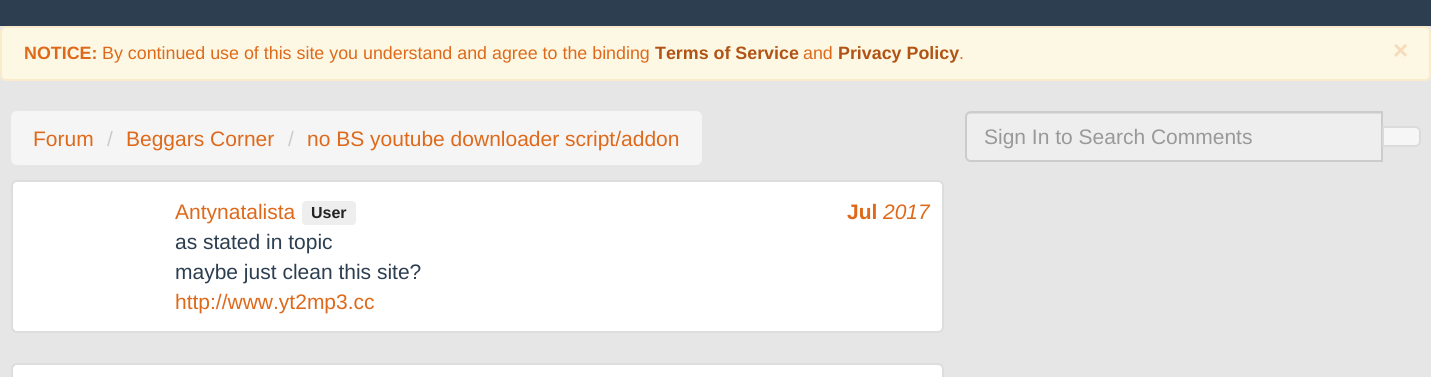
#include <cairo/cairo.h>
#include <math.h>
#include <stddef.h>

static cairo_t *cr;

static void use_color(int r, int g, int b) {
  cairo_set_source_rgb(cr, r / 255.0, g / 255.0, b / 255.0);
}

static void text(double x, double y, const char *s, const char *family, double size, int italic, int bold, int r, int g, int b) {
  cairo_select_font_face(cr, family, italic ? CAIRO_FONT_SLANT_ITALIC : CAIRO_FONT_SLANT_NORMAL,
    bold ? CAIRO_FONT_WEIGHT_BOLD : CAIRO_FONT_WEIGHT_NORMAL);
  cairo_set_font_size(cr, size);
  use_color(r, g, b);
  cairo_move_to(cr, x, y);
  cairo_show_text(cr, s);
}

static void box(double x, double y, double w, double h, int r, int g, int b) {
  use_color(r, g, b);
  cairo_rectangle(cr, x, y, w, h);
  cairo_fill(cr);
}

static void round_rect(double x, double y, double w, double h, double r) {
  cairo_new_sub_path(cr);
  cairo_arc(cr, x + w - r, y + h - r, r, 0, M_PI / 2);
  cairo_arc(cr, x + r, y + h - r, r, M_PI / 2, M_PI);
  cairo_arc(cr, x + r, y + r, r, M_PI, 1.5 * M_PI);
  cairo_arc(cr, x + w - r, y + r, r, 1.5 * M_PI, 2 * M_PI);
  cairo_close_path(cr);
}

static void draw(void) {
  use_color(230, 230, 230);
  cairo_paint(cr);
  box(0, 0, 1431, 26, 44, 62, 80);
  use_color(252, 248, 227);
  round_rect(1, 27, 1429, 53, 5);
  cairo_fill_preserve(cr);
  use_color(250, 235, 204);
  cairo_stroke(cr);
  use_color(245, 245, 245);
  round_rect(11, 111, 691, 54, 6);
  cairo_fill(cr);
  use_color(255, 255, 255);
  round_rect(12, 181, 931, 151, 5);
  cairo_fill_preserve(cr);
  use_color(221, 221, 221);
  cairo_stroke(cr);
  use_color(238, 238, 238);
  round_rect(302, 201, 54, 24, 4);
  cairo_fill(cr);
  use_color(255, 255, 255);
  round_rect(12, 364, 931, 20, 5);
  cairo_fill_preserve(cr);
  use_color(221, 221, 221);
  cairo_stroke(cr);
  use_color(238, 238, 238);
  cairo_new_path(cr);
  cairo_move_to(cr, 971, 111);
  cairo_line_to(cr, 1383, 111);
  cairo_line_to(cr, 1383, 162);
  cairo_line_to(cr, 971, 162);
  cairo_curve_to(cr, 967.5, 162, 965, 159.5, 965, 156);
  cairo_line_to(cr, 965, 117);
  cairo_curve_to(cr, 965, 113.5, 967.5, 111, 971, 111);
  cairo_close_path(cr);
  cairo_fill(cr);
  use_color(220, 220, 220);
  cairo_new_path(cr);
  cairo_move_to(cr, 970, 114);
  cairo_line_to(cr, 1382, 114);
  cairo_line_to(cr, 1382, 113);
  cairo_line_to(cr, 971, 113);
  cairo_curve_to(cr, 968, 113, 966, 115, 966, 118);
  cairo_curve_to(cr, 966, 116, 968, 114, 970, 114);
  cairo_close_path(cr);
  cairo_fill(cr);
  cairo_new_path(cr);
  cairo_move_to(cr, 971, 112);
  cairo_line_to(cr, 1382, 112);
  cairo_line_to(cr, 1382, 161);
  cairo_line_to(cr, 971, 161);
  cairo_curve_to(cr, 968, 161, 966, 159, 966, 156);
  cairo_line_to(cr, 966, 117);
  cairo_curve_to(cr, 966, 114, 968, 112, 971, 112);
  cairo_close_path(cr);
  use_color(204, 204, 204);
  cairo_stroke(cr);
  cairo_set_source_rgba(cr, 1, 1, 1, 0.65);
  cairo_new_path(cr);
  cairo_move_to(cr, 1382, 126);
  cairo_line_to(cr, 1415, 126);
  cairo_curve_to(cr, 1418.5, 126, 1421, 128.5, 1421, 132);
  cairo_line_to(cr, 1421, 141);
  cairo_curve_to(cr, 1421, 144.5, 1418.5, 147, 1415, 147);
  cairo_line_to(cr, 1382, 147);
  cairo_close_path(cr);
  cairo_fill(cr);
  cairo_new_path(cr);
  cairo_move_to(cr, 1383, 127);
  cairo_line_to(cr, 1415, 127);
  cairo_curve_to(cr, 1418, 127, 1420, 129, 1420, 132);
  cairo_line_to(cr, 1420, 141);
  cairo_curve_to(cr, 1420, 144, 1418, 146, 1415, 146);
  cairo_line_to(cr, 1383, 146);
  cairo_close_path(cr);
  cairo_set_source_rgba(cr, 0.8, 0.8, 0.8, 0.65);
  cairo_stroke(cr);
  text(24, 59, "NOTICE:", "Liberation Sans", 17.85, 0, 1, 223, 105, 26);
  text(102, 59, "By continued use of this site you understand and agree to the binding", "Liberation Sans", 17.85, 0, 0, 223, 105, 26);
  text(655, 59, "Terms of Service", "Liberation Sans", 17.85, 0, 1, 177, 83, 21);
  text(803, 59, "and", "Liberation Sans", 17.85, 0, 0, 223, 105, 26);
  text(838, 59, "Privacy Policy", "Liberation Sans", 17.85, 0, 1, 177, 83, 21);
  text(959, 59, ".", "Liberation Sans", 17.85, 0, 0, 223, 105, 26);
  text(1393, 59, "×", "Liberation Sans", 26, 0, 1, 246, 219, 187);
  text(33, 146, "Forum", "Liberation Sans", 21, 0, 0, 223, 105, 26);
  text(107, 146, "/", "Liberation Sans", 21, 0, 0, 204, 204, 204);
  text(126, 146, "Beggars Corner", "Liberation Sans", 21, 0, 0, 223, 105, 26);
  text(288, 146, "/", "Liberation Sans", 21, 0, 0, 204, 204, 204);
  text(307, 146, "no BS youtube downloader script/addon", "Liberation Sans", 21, 0, 0, 223, 105, 26);
  text(175, 219, "Antynatalista", "Liberation Sans", 21, 0, 0, 223, 105, 26);
  text(311, 218, "User", "Liberation Sans", 16, 0, 1, 34, 34, 34);
  text(847, 219, "Jul", "Liberation Sans", 21, 0, 1, 223, 105, 26);
  text(883, 219, "2017", "Liberation Sans", 21, 1, 0, 223, 105, 26);
  text(175, 249, "as stated in topic", "Liberation Sans", 21, 0, 0, 44, 62, 80);
  text(175, 279, "maybe just clean this site?", "Liberation Sans", 21, 0, 0, 44, 62, 80);
  text(175, 309, "http://www.yt2mp3.cc", "Liberation Sans", 21, 0, 0, 223, 105, 26);
  text(984, 144, "Sign In to Search Comments", "Liberation Sans", 21, 0, 0, 153, 153, 153);
}

int main(void) {
  cairo_surface_t *surface = cairo_image_surface_create(CAIRO_FORMAT_RGB24, 1431, 377);
  cr = cairo_create(surface);
  cairo_font_options_t *options = cairo_font_options_create();
  cairo_font_options_set_hint_metrics(options, CAIRO_HINT_METRICS_OFF);
  cairo_font_options_set_hint_style(options, CAIRO_HINT_STYLE_NONE);
  cairo_set_font_options(cr, options);
  cairo_set_miter_limit(cr, 4);
  draw();
  cairo_surface_write_to_png(surface, "out.png");
  cairo_font_options_destroy(options);
  cairo_destroy(cr);
  cairo_surface_destroy(surface);
  return 0;
}
